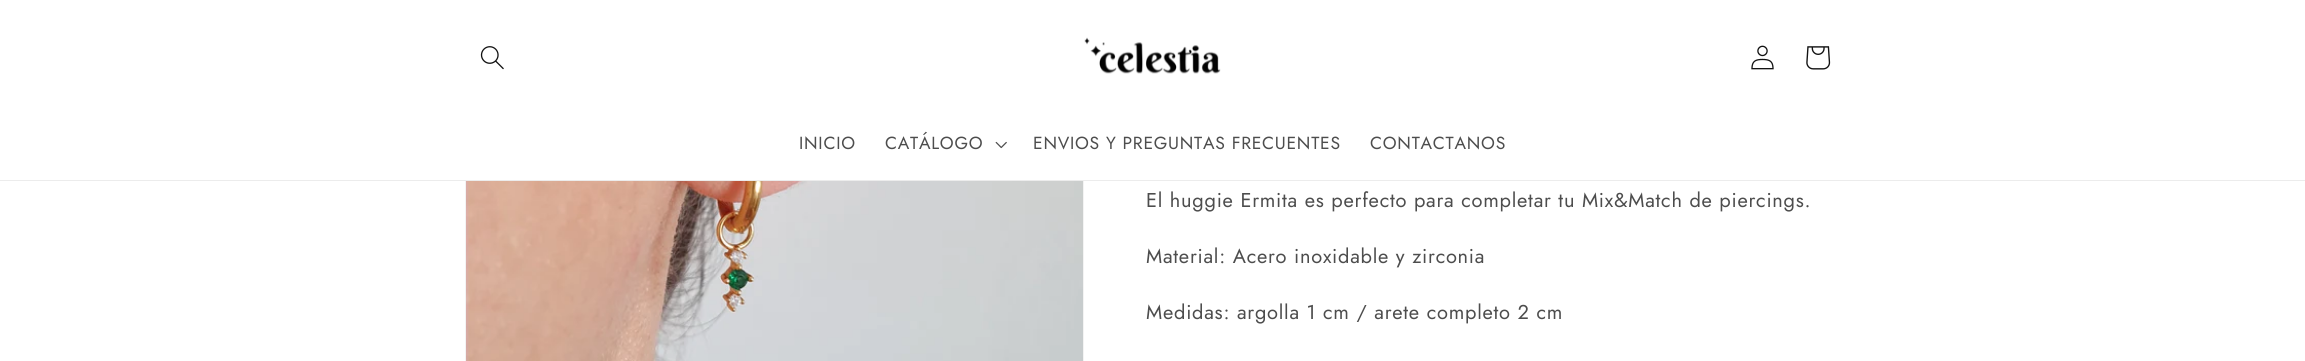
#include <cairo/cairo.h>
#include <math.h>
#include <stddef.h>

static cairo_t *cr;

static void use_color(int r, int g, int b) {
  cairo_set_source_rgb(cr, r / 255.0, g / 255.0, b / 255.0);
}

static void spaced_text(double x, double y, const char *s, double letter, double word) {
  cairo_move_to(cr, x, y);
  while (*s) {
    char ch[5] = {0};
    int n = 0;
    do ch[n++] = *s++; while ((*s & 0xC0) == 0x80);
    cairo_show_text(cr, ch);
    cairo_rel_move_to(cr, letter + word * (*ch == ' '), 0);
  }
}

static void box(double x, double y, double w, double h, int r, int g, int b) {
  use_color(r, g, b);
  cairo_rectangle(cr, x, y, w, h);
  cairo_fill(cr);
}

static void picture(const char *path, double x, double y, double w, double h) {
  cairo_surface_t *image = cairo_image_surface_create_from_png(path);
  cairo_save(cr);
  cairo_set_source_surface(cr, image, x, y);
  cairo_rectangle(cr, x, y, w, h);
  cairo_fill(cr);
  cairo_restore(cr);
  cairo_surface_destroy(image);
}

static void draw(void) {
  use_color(255, 255, 255);
  cairo_paint(cr);
  cairo_rectangle(cr, 465.5, -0.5, 618, 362);
  use_color(243, 243, 243);
  cairo_set_line_width(cr, 1);
  cairo_stroke(cr);
  box(465, 0, 619, 180, 255, 255, 255);
  box(0, 180, 2305, 1, 236, 236, 236);
  picture("img_01.png", 480, 46, 24, 24);
  picture("img_02.png", 1084, 37, 137, 37);
  picture("img_03.png", 1751, 45, 23, 25);
  picture("img_04.png", 1806, 46, 25, 24);
  picture("img_05.png", 995, 141, 12, 8);
  picture("img_06.png", 466, 181, 617, 180);
  cairo_select_font_face(cr, "Jost", CAIRO_FONT_SLANT_NORMAL, CAIRO_FONT_WEIGHT_NORMAL);
  cairo_set_font_size(cr, 17.5);
  use_color(77, 77, 77);
  spaced_text(799, 149, "INICIO", 0.75, 0);
  spaced_text(885, 149, "CATÁLOGO", 0.75, 0);
  spaced_text(1033, 149, "ENVIOS Y PREGUNTAS FRECUENTES", 0.75, 0);
  spaced_text(1370, 149, "CONTACTANOS", 0.75, 0);
  cairo_set_font_size(cr, 20);
  spaced_text(1146, 207, "El huggie Ermita es perfecto para completar tu Mix&Match de piercings.", 0.75, 0);
  spaced_text(1146, 263, "Material: Acero inoxidable y zirconia", 0.75, 0);
  spaced_text(1146, 319, "Medidas: argolla 1 cm / arete completo 2 cm", 0.75, 0);
}

int main(void) {
  cairo_surface_t *surface = cairo_image_surface_create(CAIRO_FORMAT_RGB24, 2305, 361);
  cr = cairo_create(surface);
  cairo_font_options_t *options = cairo_font_options_create();
  cairo_font_options_set_hint_metrics(options, CAIRO_HINT_METRICS_OFF);
  cairo_font_options_set_hint_style(options, CAIRO_HINT_STYLE_NONE);
  cairo_set_font_options(cr, options);
  cairo_set_miter_limit(cr, 4);
  draw();
  cairo_surface_write_to_png(surface, "out.png");
  cairo_font_options_destroy(options);
  cairo_destroy(cr);
  cairo_surface_destroy(surface);
  return 0;
}
